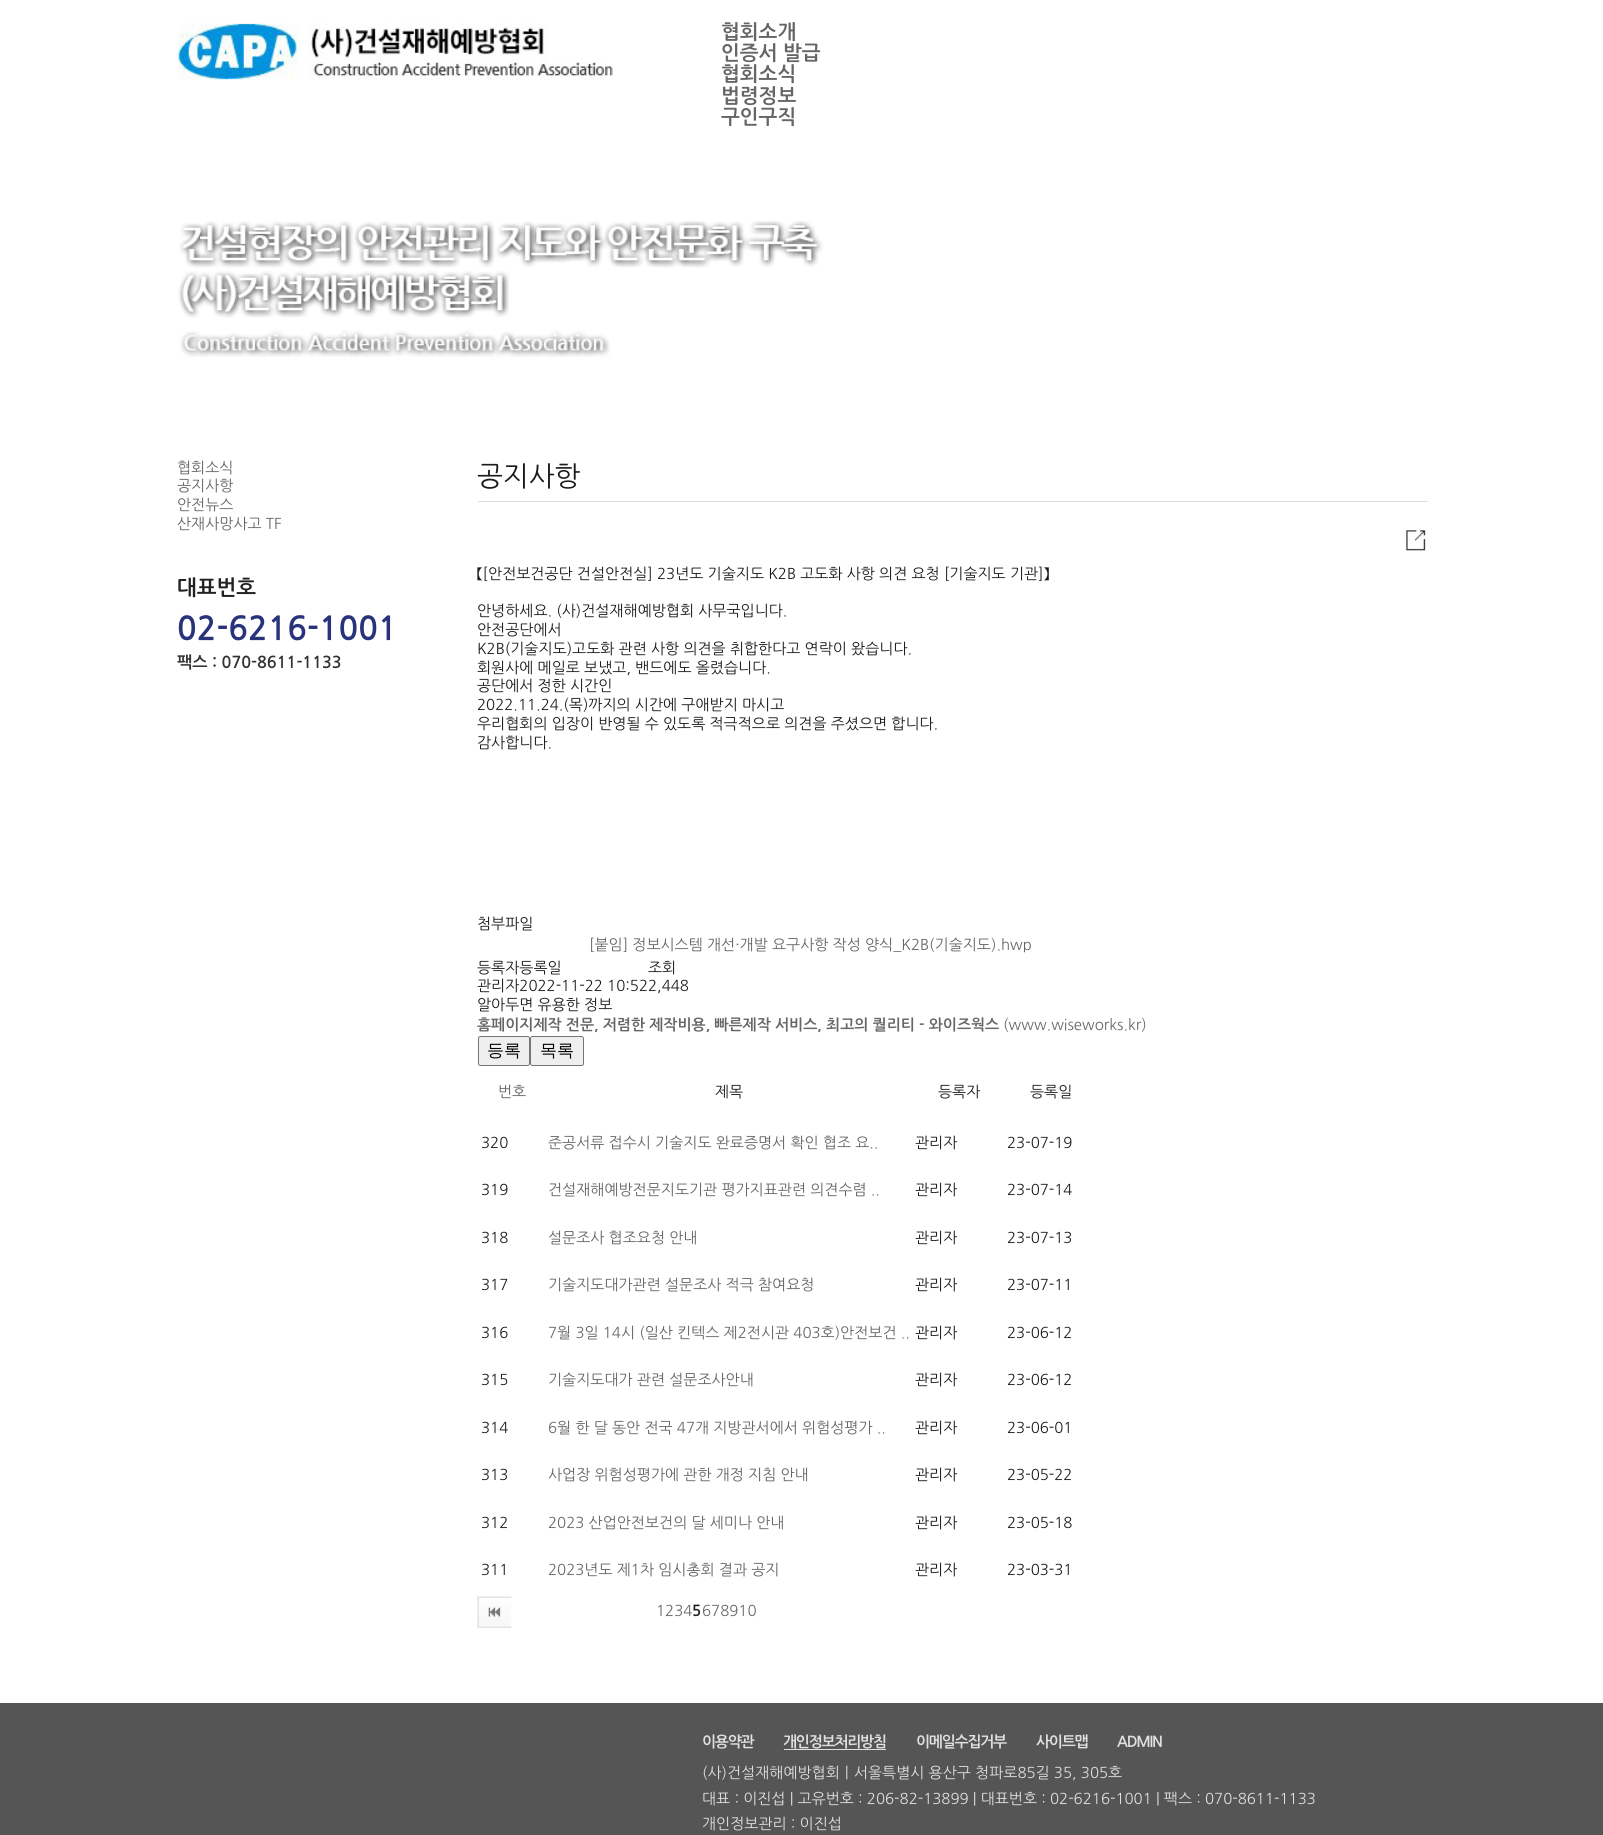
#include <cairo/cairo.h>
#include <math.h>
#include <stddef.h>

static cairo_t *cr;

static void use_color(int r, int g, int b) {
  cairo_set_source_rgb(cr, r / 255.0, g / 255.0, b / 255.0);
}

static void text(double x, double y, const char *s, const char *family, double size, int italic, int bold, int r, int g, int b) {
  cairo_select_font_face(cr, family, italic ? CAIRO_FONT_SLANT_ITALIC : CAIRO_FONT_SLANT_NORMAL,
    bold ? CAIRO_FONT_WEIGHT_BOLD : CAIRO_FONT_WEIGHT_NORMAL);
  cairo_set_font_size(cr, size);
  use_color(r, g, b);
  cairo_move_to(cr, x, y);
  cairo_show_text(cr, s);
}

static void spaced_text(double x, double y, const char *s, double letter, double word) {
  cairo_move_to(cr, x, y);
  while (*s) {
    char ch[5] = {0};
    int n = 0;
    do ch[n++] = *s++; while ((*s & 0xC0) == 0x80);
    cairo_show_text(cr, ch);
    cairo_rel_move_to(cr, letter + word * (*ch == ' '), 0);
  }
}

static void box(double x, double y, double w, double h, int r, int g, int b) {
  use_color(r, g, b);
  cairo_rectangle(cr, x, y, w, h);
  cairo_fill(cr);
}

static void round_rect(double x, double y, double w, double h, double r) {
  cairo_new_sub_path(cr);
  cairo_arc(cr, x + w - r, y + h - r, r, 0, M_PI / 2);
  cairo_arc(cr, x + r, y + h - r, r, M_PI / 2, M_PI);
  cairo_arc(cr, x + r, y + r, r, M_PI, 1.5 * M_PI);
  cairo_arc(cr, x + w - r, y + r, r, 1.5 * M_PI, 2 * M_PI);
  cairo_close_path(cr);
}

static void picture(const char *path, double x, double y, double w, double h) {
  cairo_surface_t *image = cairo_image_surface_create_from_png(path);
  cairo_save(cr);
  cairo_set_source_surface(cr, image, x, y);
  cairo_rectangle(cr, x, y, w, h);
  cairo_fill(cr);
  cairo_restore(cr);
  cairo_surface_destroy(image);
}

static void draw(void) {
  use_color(255, 255, 255);
  cairo_paint(cr);
  picture("img_01.png", 177, 23, 436, 57);
  picture("img_02.png", 178, 221, 645, 136);
  box(478, 501, 950, 1, 221, 221, 221);
  picture("img_03.png", 1406, 530, 20, 21);
  use_color(239, 239, 239);
  round_rect(478.5, 1036.5, 51, 29, 2);
  cairo_fill_preserve(cr);
  use_color(118, 118, 118);
  cairo_set_line_width(cr, 1);
  cairo_stroke(cr);
  use_color(239, 239, 239);
  round_rect(530.5, 1036.5, 53, 29, 2);
  cairo_fill_preserve(cr);
  use_color(118, 118, 118);
  cairo_stroke(cr);
  picture("img_04.png", 477, 1596, 35, 32);
  box(0, 1703, 1603, 132, 85, 85, 85);
  box(784, 1749, 102, 1, 224, 224, 224);
  text(721, 39, "협회소개", "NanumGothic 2", 20, 0, 1, 102, 102, 102);
  text(721, 60, "인증서 발급", "NanumGothic 2", 20, 0, 1, 102, 102, 102);
  text(721, 81, "협회소식", "NanumGothic 2", 20, 0, 1, 102, 102, 102);
  text(721, 103, "법령정보", "NanumGothic 2", 20, 0, 1, 102, 102, 102);
  text(721, 124, "구인구직", "NanumGothic 2", 20, 0, 1, 102, 102, 102);
  text(177, 473, "협회소식", "NanumGothic", 15, 0, 0, 102, 102, 102);
  text(177, 491, "공지사항", "NanumGothic", 15, 0, 0, 102, 102, 102);
  text(177, 510, "안전뉴스", "NanumGothic", 15, 0, 0, 102, 102, 102);
  text(177, 529, "산재사망사고 TF", "NanumGothic", 15, 0, 0, 102, 102, 102);
  text(177, 595, "대표번호", "NanumGothic", 21, 0, 1, 34, 34, 34);
  text(177, 640, "02-6216-1001", "NanumGothic", 32.5, 0, 1, 41, 51, 123);
  text(177, 668, "팩스 : 070-8611-1133", "NanumGothic 2", 16.25, 0, 1, 51, 51, 51);
  text(477, 486, "공지사항", "NanumGothic", 27.5, 0, 0, 28, 28, 28);
  text(477, 579, "【[안전보건공단 건설안전실] 23년도 기술지도 K2B 고도화 사항 의견 요청 [기술지도 기관]】", "NanumGothic", 15, 0, 0, 28, 28, 28);
  text(477, 616, "안녕하세요. (사)건설재해예방협회 사무국입니다.", "NanumGothic", 15, 0, 0, 28, 28, 28);
  text(477, 635, "안전공단에서", "NanumGothic", 15, 0, 0, 28, 28, 28);
  text(477, 654, "K2B(기술지도)고도화 관련 사항 의견을 취합한다고 연락이 왔습니다.", "NanumGothic", 15, 0, 0, 28, 28, 28);
  text(477, 673, "회원사에 메일로 보냈고, 밴드에도 올렸습니다.", "NanumGothic", 15, 0, 0, 28, 28, 28);
  text(477, 691, "공단에서 정한 시간인", "NanumGothic", 15, 0, 0, 28, 28, 28);
  text(477, 710, "2022.11.24.(목)까지의 시간에 구애받지 마시고", "NanumGothic", 15, 0, 0, 28, 28, 28);
  text(477, 729, "우리협회의 입장이 반영될 수 있도록 적극적으로 의견을 주셨으면 합니다.", "NanumGothic", 15, 0, 0, 28, 28, 28);
  text(477, 748, "감사합니다.", "NanumGothic", 15, 0, 0, 28, 28, 28);
  text(477, 929, "첨부파일", "NanumGothic", 15, 0, 0, 28, 28, 28);
  text(589, 950, "[붙임] 정보시스템 개선·개발 요구사항 작성 양식_K2B(기술지도).hwp", "NanumGothic", 15, 0, 0, 102, 102, 102);
  text(477, 973, "등록자등록일", "NanumGothic", 15, 0, 0, 28, 28, 28);
  text(477, 991, "관리자2022-11-22 10:522,448", "NanumGothic", 15, 0, 0, 28, 28, 28);
  text(648, 973, "조회", "NanumGothic", 15, 0, 0, 28, 28, 28);
  text(477, 1010, "알아두면 유용한 정보", "NanumGothic", 15, 0, 0, 28, 28, 28);
  text(477, 1030, "홈페이지제작 전문, 저렴한 제작비용, 빠른제작 서비스, 최고의 퀄리티 - 와이즈웍스", "NanumGothic 2", 15, 0, 1, 102, 102, 102);
  text(1003, 1030, "(www.wiseworks.kr)", "NanumGothic", 15, 0, 0, 102, 102, 102);
  text(487, 1056, "등록", "WenQuanYi Zen Hei Medium", 17, 0, 0, 0, 0, 0);
  text(540, 1056, "목록", "WenQuanYi Zen Hei Medium", 17, 0, 0, 0, 0, 0);
  text(498, 1097, "번호", "NanumGothic", 15, 0, 0, 102, 102, 102);
  text(715, 1097, "제목", "NanumGothic", 15, 0, 0, 28, 28, 28);
  text(938, 1097, "등록자", "NanumGothic", 15, 0, 0, 28, 28, 28);
  text(1030, 1097, "등록일", "NanumGothic", 15, 0, 0, 28, 28, 28);
  text(481, 1148, "320", "NanumGothic", 15, 0, 0, 28, 28, 28);
  text(548, 1148, "준공서류 접수시 기술지도 완료증명서 확인 협조 요..", "NanumGothic", 15, 0, 0, 102, 102, 102);
  text(915, 1148, "관리자", "NanumGothic", 15, 0, 0, 28, 28, 28);
  text(1007, 1148, "23-07-19", "NanumGothic", 15, 0, 0, 28, 28, 28);
  text(481, 1195, "319", "NanumGothic", 15, 0, 0, 28, 28, 28);
  text(548, 1195, "건설재해예방전문지도기관 평가지표관련 의견수렴 ..", "NanumGothic", 15, 0, 0, 102, 102, 102);
  text(915, 1195, "관리자", "NanumGothic", 15, 0, 0, 28, 28, 28);
  text(1007, 1195, "23-07-14", "NanumGothic", 15, 0, 0, 28, 28, 28);
  text(481, 1243, "318", "NanumGothic", 15, 0, 0, 28, 28, 28);
  text(548, 1243, "설문조사 협조요청 안내", "NanumGothic", 15, 0, 0, 102, 102, 102);
  text(915, 1243, "관리자", "NanumGothic", 15, 0, 0, 28, 28, 28);
  text(1007, 1243, "23-07-13", "NanumGothic", 15, 0, 0, 28, 28, 28);
  text(481, 1290, "317", "NanumGothic", 15, 0, 0, 28, 28, 28);
  text(548, 1290, "기술지도대가관련 설문조사 적극 참여요청", "NanumGothic", 15, 0, 0, 102, 102, 102);
  text(915, 1290, "관리자", "NanumGothic", 15, 0, 0, 28, 28, 28);
  text(1007, 1290, "23-07-11", "NanumGothic", 15, 0, 0, 28, 28, 28);
  text(481, 1338, "316", "NanumGothic", 15, 0, 0, 28, 28, 28);
  text(548, 1338, "7월 3일 14시 (일산 킨텍스 제2전시관 403호)안전보건 ..", "NanumGothic", 15, 0, 0, 102, 102, 102);
  text(915, 1338, "관리자", "NanumGothic", 15, 0, 0, 28, 28, 28);
  text(1007, 1338, "23-06-12", "NanumGothic", 15, 0, 0, 28, 28, 28);
  text(481, 1385, "315", "NanumGothic", 15, 0, 0, 28, 28, 28);
  text(548, 1385, "기술지도대가 관련 설문조사안내", "NanumGothic", 15, 0, 0, 102, 102, 102);
  text(915, 1385, "관리자", "NanumGothic", 15, 0, 0, 28, 28, 28);
  text(1007, 1385, "23-06-12", "NanumGothic", 15, 0, 0, 28, 28, 28);
  text(481, 1433, "314", "NanumGothic", 15, 0, 0, 28, 28, 28);
  text(548, 1433, "6월 한 달 동안 전국 47개 지방관서에서 위험성평가 ..", "NanumGothic", 15, 0, 0, 102, 102, 102);
  text(915, 1433, "관리자", "NanumGothic", 15, 0, 0, 28, 28, 28);
  text(1007, 1433, "23-06-01", "NanumGothic", 15, 0, 0, 28, 28, 28);
  text(481, 1480, "313", "NanumGothic", 15, 0, 0, 28, 28, 28);
  text(548, 1480, "사업장 위험성평가에 관한 개정 지침 안내", "NanumGothic", 15, 0, 0, 102, 102, 102);
  text(915, 1480, "관리자", "NanumGothic", 15, 0, 0, 28, 28, 28);
  text(1007, 1480, "23-05-22", "NanumGothic", 15, 0, 0, 28, 28, 28);
  text(481, 1528, "312", "NanumGothic", 15, 0, 0, 28, 28, 28);
  text(548, 1528, "2023 산업안전보건의 달 세미나 안내", "NanumGothic", 15, 0, 0, 102, 102, 102);
  text(915, 1528, "관리자", "NanumGothic", 15, 0, 0, 28, 28, 28);
  text(1007, 1528, "23-05-18", "NanumGothic", 15, 0, 0, 28, 28, 28);
  text(481, 1575, "311", "NanumGothic", 15, 0, 0, 28, 28, 28);
  text(548, 1575, "2023년도 제1차 임시총회 결과 공지", "NanumGothic", 15, 0, 0, 102, 102, 102);
  text(915, 1575, "관리자", "NanumGothic", 15, 0, 0, 28, 28, 28);
  text(1007, 1575, "23-03-31", "NanumGothic", 15, 0, 0, 28, 28, 28);
  text(656, 1616, "1234", "NanumGothic", 15, 0, 0, 102, 102, 102);
  text(692, 1616, "5", "NanumGothic 2", 15, 0, 1, 28, 28, 28);
  text(702, 1616, "678910", "NanumGothic", 15, 0, 0, 102, 102, 102);
  cairo_select_font_face(cr, "NanumGothic 2", CAIRO_FONT_SLANT_NORMAL, CAIRO_FONT_WEIGHT_BOLD);
  use_color(224, 224, 224);
  spaced_text(702, 1747, "이용약관", -1.25, 0);
  spaced_text(783, 1747, "개인정보처리방침", -1.25, 0);
  spaced_text(916, 1747, "이메일수집거부", -1.25, 0);
  spaced_text(1036, 1747, "사이트맵", -1.25, 0);
  spaced_text(1117, 1747, "ADMIN", -1.25, 0);
  text(702, 1778, "(사)건설재해예방협회ㅣ서울특별시 용산구 청파로85길 35, 305호", "NanumGothic", 15, 0, 0, 224, 224, 224);
  text(702, 1804, "대표 : 이진섭 | 고유번호 : 206-82-13899 | 대표번호 : 02-6216-1001 | 팩스 : 070-8611-1133", "NanumGothic", 15, 0, 0, 224, 224, 224);
  text(702, 1829, "개인정보관리 : 이진섭", "NanumGothic", 15, 0, 0, 224, 224, 224);
}

int main(void) {
  cairo_surface_t *surface = cairo_image_surface_create(CAIRO_FORMAT_RGB24, 1603, 1835);
  cr = cairo_create(surface);
  cairo_font_options_t *options = cairo_font_options_create();
  cairo_font_options_set_hint_metrics(options, CAIRO_HINT_METRICS_OFF);
  cairo_font_options_set_hint_style(options, CAIRO_HINT_STYLE_NONE);
  cairo_set_font_options(cr, options);
  cairo_set_miter_limit(cr, 4);
  draw();
  cairo_surface_write_to_png(surface, "out.png");
  cairo_font_options_destroy(options);
  cairo_destroy(cr);
  cairo_surface_destroy(surface);
  return 0;
}
